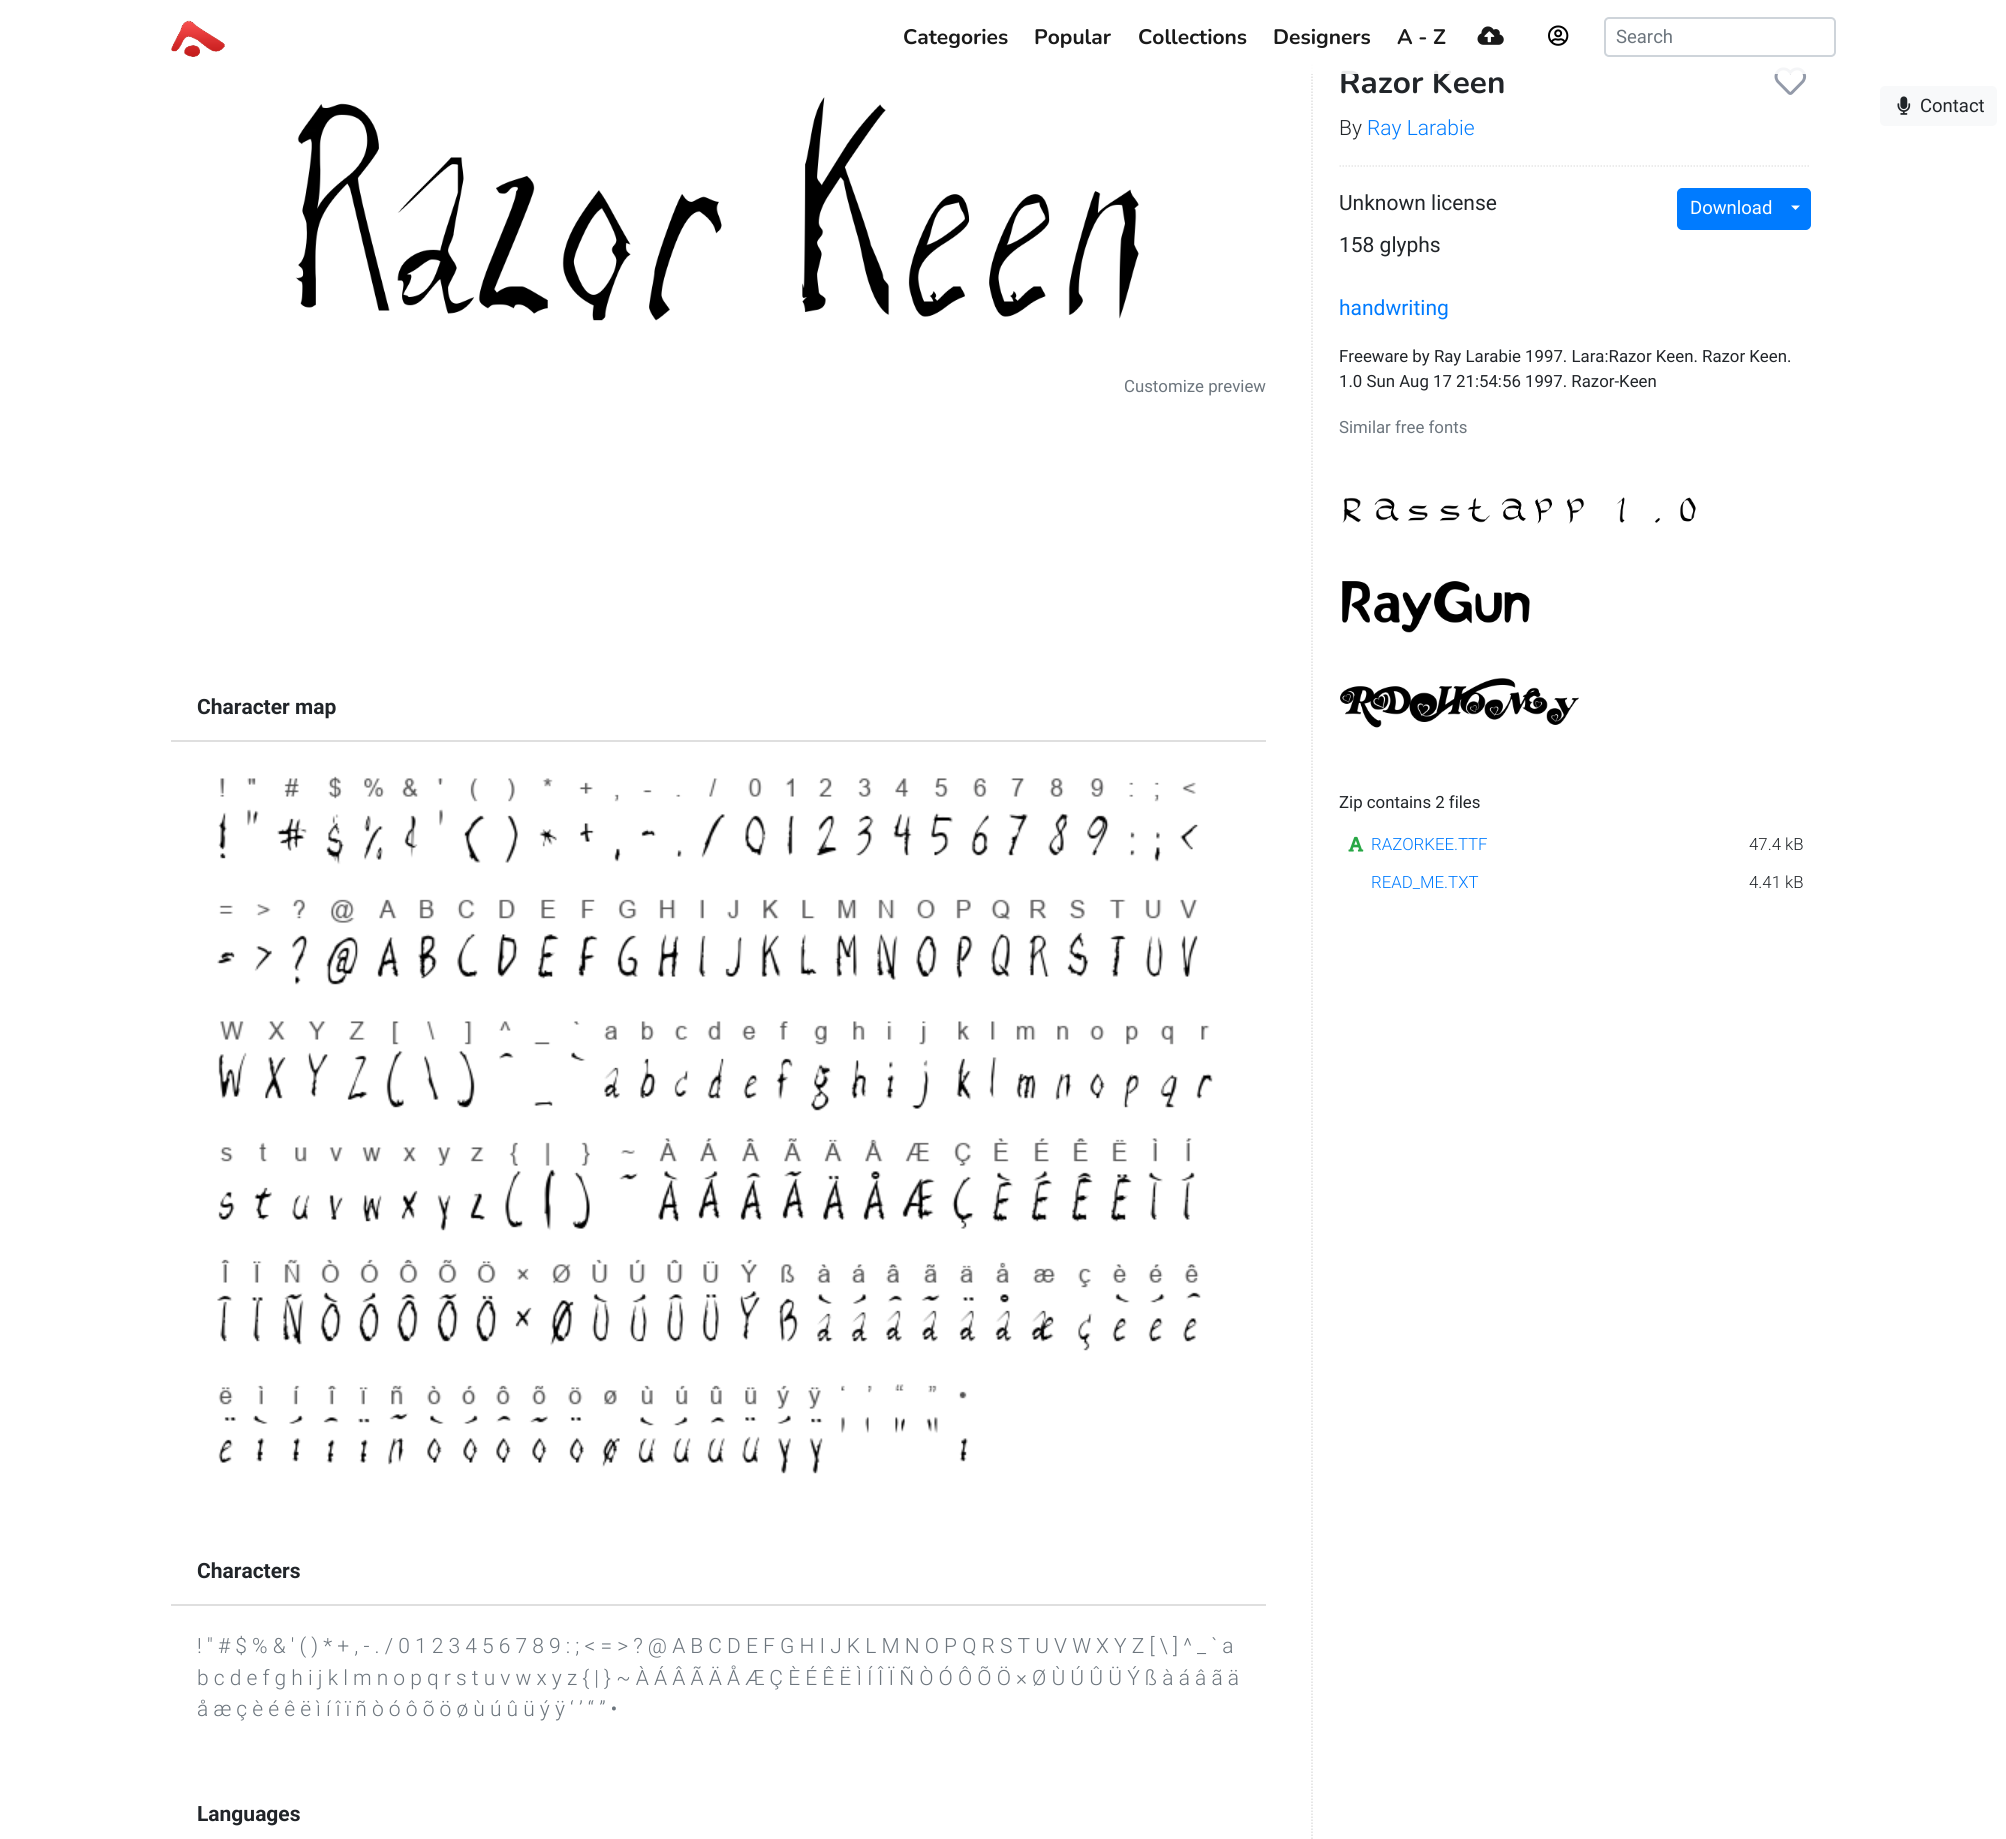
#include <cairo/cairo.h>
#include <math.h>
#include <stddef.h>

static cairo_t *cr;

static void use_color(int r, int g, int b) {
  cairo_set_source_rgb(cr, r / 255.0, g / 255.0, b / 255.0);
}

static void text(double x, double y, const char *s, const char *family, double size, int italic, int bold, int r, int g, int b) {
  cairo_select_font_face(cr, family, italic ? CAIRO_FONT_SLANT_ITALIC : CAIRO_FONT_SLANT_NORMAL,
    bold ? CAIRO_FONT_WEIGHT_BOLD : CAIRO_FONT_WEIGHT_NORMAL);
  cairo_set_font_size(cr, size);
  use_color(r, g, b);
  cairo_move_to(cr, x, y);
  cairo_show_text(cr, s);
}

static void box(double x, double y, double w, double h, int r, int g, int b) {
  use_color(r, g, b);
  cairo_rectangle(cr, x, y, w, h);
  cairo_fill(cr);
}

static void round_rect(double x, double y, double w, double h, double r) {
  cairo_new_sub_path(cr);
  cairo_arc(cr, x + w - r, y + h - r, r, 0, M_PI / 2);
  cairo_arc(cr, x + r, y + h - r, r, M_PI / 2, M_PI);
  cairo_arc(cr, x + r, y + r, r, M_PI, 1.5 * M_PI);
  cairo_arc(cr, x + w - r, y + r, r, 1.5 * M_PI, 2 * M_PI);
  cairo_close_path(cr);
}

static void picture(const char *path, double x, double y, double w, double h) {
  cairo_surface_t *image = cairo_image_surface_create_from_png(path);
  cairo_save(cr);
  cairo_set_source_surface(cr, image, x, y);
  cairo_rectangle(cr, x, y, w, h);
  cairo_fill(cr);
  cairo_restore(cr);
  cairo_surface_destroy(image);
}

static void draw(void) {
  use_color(255, 255, 255);
  cairo_paint(cr);
  picture("img_01.png", 171, 20, 54, 37);
  picture("img_02.png", 1477, 26, 27, 19);
  picture("img_03.png", 1548, 25, 21, 21);
  round_rect(1605, 18, 230, 38, 4);
  use_color(206, 212, 218);
  cairo_stroke(cr);
  picture("img_04.png", 295, 97, 844, 224);
  box(171, 740, 1095, 2, 223, 223, 223);
  picture("img_05.png", 217, 776, 996, 698);
  box(171, 1604, 1095, 2, 223, 223, 223);
  cairo_new_path(cr);
  cairo_move_to(cr, 1312, 64.5);
  cairo_line_to(cr, 1312, 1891.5);
  cairo_set_line_width(cr, 1.5);
  cairo_set_dash(cr, (double[]){1.5, 1.5}, 2, 0);
  cairo_stroke(cr);
  picture("img_06.png", 1774, 67, 33, 28);
  cairo_new_path(cr);
  cairo_move_to(cr, 1339.5, 166);
  cairo_line_to(cr, 1810.5, 166);
  use_color(230, 230, 230);
  cairo_stroke(cr);
  use_color(0, 123, 255);
  cairo_new_path(cr);
  cairo_move_to(cr, 1682, 189);
  cairo_line_to(cr, 1783, 189);
  cairo_line_to(cr, 1783, 229);
  cairo_line_to(cr, 1682, 229);
  cairo_curve_to(cr, 1680, 229, 1678, 227, 1678, 225);
  cairo_line_to(cr, 1678, 193);
  cairo_curve_to(cr, 1678, 191, 1680, 189, 1682, 189);
  cairo_close_path(cr);
  cairo_fill_preserve(cr);
  cairo_set_line_width(cr, 2);
  cairo_set_dash(cr, NULL, 0, 0);
  cairo_stroke(cr);
  cairo_new_path(cr);
  cairo_move_to(cr, 1783, 189);
  cairo_line_to(cr, 1806, 189);
  cairo_curve_to(cr, 1808, 189, 1810, 191, 1810, 193);
  cairo_line_to(cr, 1810, 225);
  cairo_curve_to(cr, 1810, 227, 1808, 229, 1806, 229);
  cairo_line_to(cr, 1783, 229);
  cairo_close_path(cr);
  cairo_fill_preserve(cr);
  cairo_stroke(cr);
  use_color(255, 255, 255);
  cairo_new_path(cr);
  cairo_move_to(cr, 1791, 205.5);
  cairo_line_to(cr, 1800, 205.5);
  cairo_line_to(cr, 1795.5, 210);
  cairo_close_path(cr);
  cairo_fill(cr);
  picture("img_07.png", 1342, 497, 354, 27);
  picture("img_08.png", 1342, 581, 188, 52);
  picture("img_09.png", 1340, 678, 239, 50);
  picture("img_10.png", 1348, 836, 16, 16);
  use_color(248, 249, 250);
  round_rect(1880, 86, 117, 40, 5);
  cairo_fill(cr);
  picture("img_11.png", 1897, 96, 14, 19);
  text(903, 44, "Categories", "Nunito ExtraLight", 21, 0, 0, 26, 26, 26);
  text(1034, 44, "Popular", "Nunito ExtraLight", 21, 0, 0, 26, 26, 26);
  text(1138, 44, "Collections", "Nunito ExtraLight", 21, 0, 0, 26, 26, 26);
  text(1273, 44, "Designers", "Nunito ExtraLight", 21, 0, 0, 26, 26, 26);
  text(1397, 44, "A - Z", "Nunito ExtraLight", 21, 0, 0, 26, 26, 26);
  text(1616, 43, "Search", "Roboto", 18.5, 0, 0, 108, 117, 125);
  text(1124, 392, "Customize preview", "Roboto", 16.8, 0, 0, 108, 117, 125);
  text(197, 714, "Character map", "Roboto", 21, 0, 1, 33, 37, 41);
  text(197, 1578, "Characters", "Roboto", 21, 0, 1, 33, 37, 41);
  text(197, 1653, "! \" # $ % & ' ( ) * + , - . / 0 1 2 3 4 5 6 7 8 9 : ; < = > ? @ A B C D E F G H I J K L M N O P Q R S T U V W X Y Z [ \\ ] ^ _ ` a", "Roboto Light", 21, 0, 0, 108, 117, 125);
  text(197, 1685, "b c d e f g h i j k l m n o p q r s t u v w x y z { | } ~ À Á Â Ã Ä Å Æ Ç È É Ê Ë Ì Í Î Ï Ñ Ò Ó Ô Õ Ö × Ø Ù Ú Û Ü Ý ß à á â ã ä", "Roboto Light", 21, 0, 0, 108, 117, 125);
  text(197, 1716, "å æ ç è é ê ë ì í î ï ñ ò ó ô õ ö ø ù ú û ü ý ÿ ‘ ’ “ ” •", "Roboto Light", 21, 0, 0, 108, 117, 125);
  text(197, 1821, "Languages", "Roboto", 21, 0, 1, 33, 37, 41);
  text(1339, 93, "Razor Keen", "Nunito ExtraLight", 31.5, 0, 0, 33, 37, 41);
  cairo_set_source_rgba(cr, 1, 1, 1, 0.9);
  cairo_rectangle(cr, 1311, 64, 495, 10);
  cairo_fill(cr);
  text(1339, 135, "By", "Roboto Light", 21, 0, 0, 33, 37, 41);
  text(1367, 135, "Ray Larabie", "Roboto Light", 21, 0, 0, 0, 123, 255);
  text(1339, 210, "Unknown license", "Roboto", 21, 0, 0, 33, 37, 41);
  text(1339, 252, "158 glyphs", "Roboto", 21, 0, 0, 33, 37, 41);
  text(1690, 214, "Download", "Roboto", 18.5, 0, 0, 255, 255, 255);
  text(1339, 315, "handwriting", "Roboto", 21, 0, 0, 0, 123, 255);
  text(1339, 362, "Freeware by Ray Larabie 1997. Lara:Razor Keen. Razor Keen.", "Roboto", 16.8, 0, 0, 33, 37, 41);
  text(1339, 387, "1.0 Sun Aug 17 21:54:56 1997. Razor-Keen", "Roboto", 16.8, 0, 0, 33, 37, 41);
  text(1339, 433, "Similar free fonts", "Roboto", 16.8, 0, 0, 108, 117, 125);
  text(1339, 808, "Zip contains 2 files", "Roboto", 16.8, 0, 0, 33, 37, 41);
  text(1371, 850, "RAZORKEE.TTF", "Roboto Light", 16.8, 0, 0, 0, 123, 255);
  text(1749, 850, "47.4 kB", "Roboto Light", 16.8, 0, 0, 33, 37, 41);
  text(1371, 888, "READ_ME.TXT", "Roboto Light", 16.8, 0, 0, 0, 123, 255);
  text(1749, 888, "4.41 kB", "Roboto Light", 16.8, 0, 0, 33, 37, 41);
  text(1920, 112, "Contact", "Roboto", 18.5, 0, 0, 33, 37, 41);
}

int main(void) {
  cairo_surface_t *surface = cairo_image_surface_create(CAIRO_FORMAT_RGB24, 2006, 1839);
  cr = cairo_create(surface);
  cairo_font_options_t *options = cairo_font_options_create();
  cairo_font_options_set_hint_metrics(options, CAIRO_HINT_METRICS_OFF);
  cairo_font_options_set_hint_style(options, CAIRO_HINT_STYLE_NONE);
  cairo_set_font_options(cr, options);
  cairo_set_miter_limit(cr, 4);
  draw();
  cairo_surface_write_to_png(surface, "out.png");
  cairo_font_options_destroy(options);
  cairo_destroy(cr);
  cairo_surface_destroy(surface);
  return 0;
}
